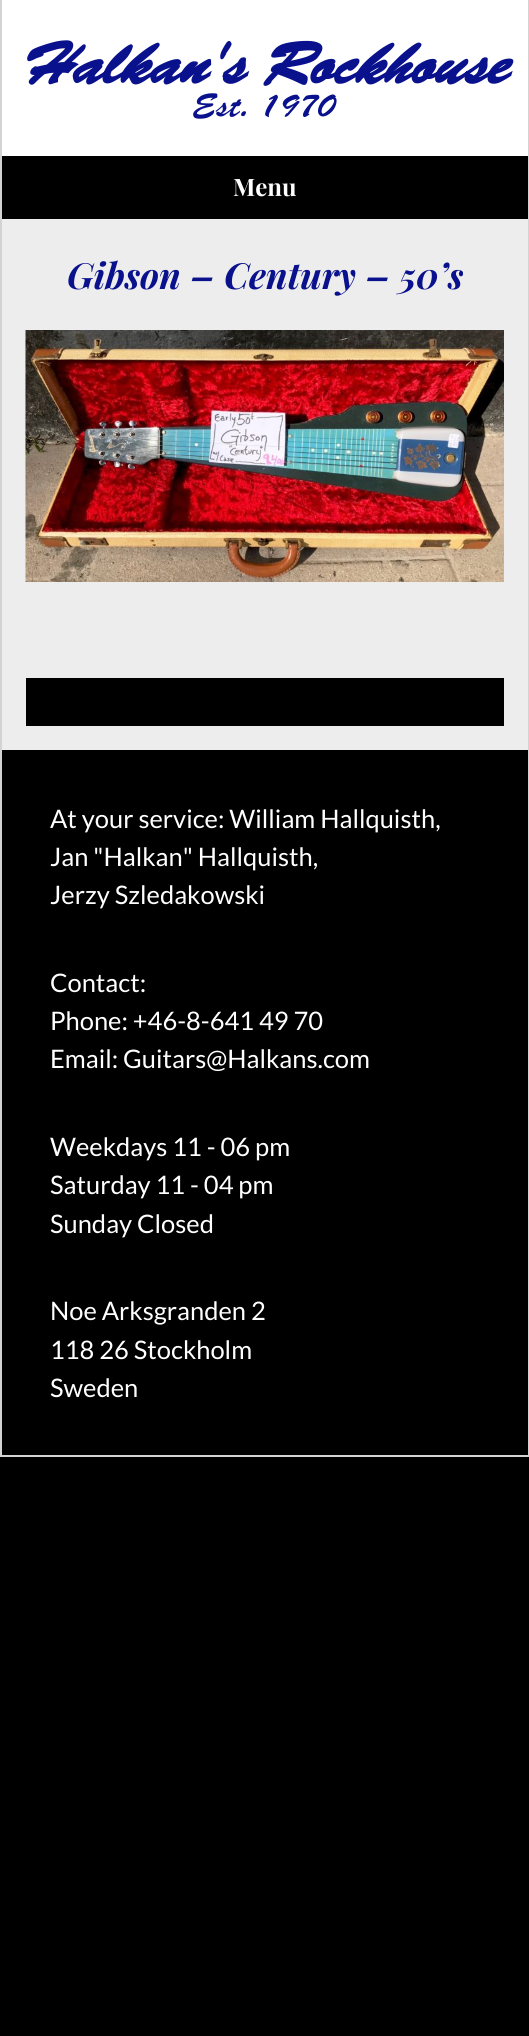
#include <cairo/cairo.h>
#include <math.h>
#include <stddef.h>

static cairo_t *cr;

static void use_color(int r, int g, int b) {
  cairo_set_source_rgb(cr, r / 255.0, g / 255.0, b / 255.0);
}

static void text(double x, double y, const char *s, const char *family, double size, int italic, int bold, int r, int g, int b) {
  cairo_select_font_face(cr, family, italic ? CAIRO_FONT_SLANT_ITALIC : CAIRO_FONT_SLANT_NORMAL,
    bold ? CAIRO_FONT_WEIGHT_BOLD : CAIRO_FONT_WEIGHT_NORMAL);
  cairo_set_font_size(cr, size);
  use_color(r, g, b);
  cairo_move_to(cr, x, y);
  cairo_show_text(cr, s);
}

static void box(double x, double y, double w, double h, int r, int g, int b) {
  use_color(r, g, b);
  cairo_rectangle(cr, x, y, w, h);
  cairo_fill(cr);
}

static void picture(const char *path, double x, double y, double w, double h) {
  cairo_surface_t *image = cairo_image_surface_create_from_png(path);
  cairo_save(cr);
  cairo_set_source_surface(cr, image, x, y);
  cairo_rectangle(cr, x, y, w, h);
  cairo_fill(cr);
  cairo_restore(cr);
  cairo_surface_destroy(image);
}

static void draw(void) {
  use_color(0, 0, 0);
  cairo_paint(cr);
  box(2, 219, 526, 531, 237, 237, 237);
  box(528, 0, 1, 1457, 211, 211, 211);
  box(0, 1455, 529, 2, 211, 211, 211);
  box(0, 0, 2, 1457, 211, 211, 211);
  box(2, 0, 526, 156, 255, 255, 255);
  picture("img_01.png", 25, 330, 479, 252);
  box(26, 678, 478, 48, 0, 0, 0);
  text(21, 83, "Halkan's Rockhouse", "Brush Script", 60, 1, 1, 10, 17, 140);
  text(194, 116, "Est. 1970", "Brush Script Thin", 33.5, 0, 0, 10, 17, 140);
  text(233, 196, "Menu", "Playfair Display", 24, 0, 1, 255, 255, 255);
  text(67, 289, "Gibson – Century – 50’s", "Playfair Display", 36, 1, 1, 10, 17, 140);
  text(50, 828, "At your service: William Hallquisth,", "Lato", 25.5, 0, 0, 255, 255, 255);
  text(50, 866, "Jan \"Halkan\" Hallquisth,", "Lato", 25.5, 0, 0, 255, 255, 255);
  text(50, 904, "Jerzy Szledakowski", "Lato", 25.5, 0, 0, 255, 255, 255);
  text(50, 992, "Contact:", "Lato", 25.5, 0, 0, 255, 255, 255);
  text(50, 1030, "Phone: +46-8-641 49 70", "Lato", 25.5, 0, 0, 255, 255, 255);
  text(50, 1068, "Email: Guitars@Halkans.com", "Lato", 25.5, 0, 0, 255, 255, 255);
  text(50, 1156, "Weekdays 11 - 06 pm", "Lato", 25.5, 0, 0, 255, 255, 255);
  text(50, 1194, "Saturday 11 - 04 pm", "Lato", 25.5, 0, 0, 255, 255, 255);
  text(50, 1233, "Sunday Closed", "Lato", 25.5, 0, 0, 255, 255, 255);
  text(50, 1320, "Noe Arksgranden 2", "Lato", 25.5, 0, 0, 255, 255, 255);
  text(50, 1359, "118 26 Stockholm", "Lato", 25.5, 0, 0, 255, 255, 255);
  text(50, 1397, "Sweden", "Lato", 25.5, 0, 0, 255, 255, 255);
}

int main(void) {
  cairo_surface_t *surface = cairo_image_surface_create(CAIRO_FORMAT_RGB24, 529, 2036);
  cr = cairo_create(surface);
  cairo_font_options_t *options = cairo_font_options_create();
  cairo_font_options_set_hint_metrics(options, CAIRO_HINT_METRICS_OFF);
  cairo_font_options_set_hint_style(options, CAIRO_HINT_STYLE_NONE);
  cairo_set_font_options(cr, options);
  cairo_set_miter_limit(cr, 4);
  draw();
  cairo_surface_write_to_png(surface, "out.png");
  cairo_font_options_destroy(options);
  cairo_destroy(cr);
  cairo_surface_destroy(surface);
  return 0;
}
